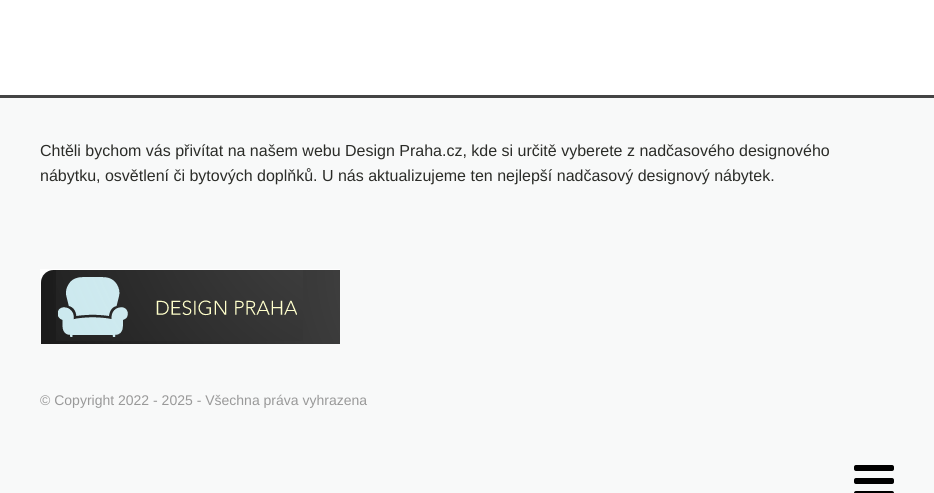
#include <cairo/cairo.h>
#include <math.h>
#include <stddef.h>

static cairo_t *cr;

static void use_color(int r, int g, int b) {
  cairo_set_source_rgb(cr, r / 255.0, g / 255.0, b / 255.0);
}

static void text(double x, double y, const char *s, const char *family, double size, int italic, int bold, int r, int g, int b) {
  cairo_select_font_face(cr, family, italic ? CAIRO_FONT_SLANT_ITALIC : CAIRO_FONT_SLANT_NORMAL,
    bold ? CAIRO_FONT_WEIGHT_BOLD : CAIRO_FONT_WEIGHT_NORMAL);
  cairo_set_font_size(cr, size);
  use_color(r, g, b);
  cairo_move_to(cr, x, y);
  cairo_show_text(cr, s);
}

static void box(double x, double y, double w, double h, int r, int g, int b) {
  use_color(r, g, b);
  cairo_rectangle(cr, x, y, w, h);
  cairo_fill(cr);
}

static void round_rect(double x, double y, double w, double h, double r) {
  cairo_new_sub_path(cr);
  cairo_arc(cr, x + w - r, y + h - r, r, 0, M_PI / 2);
  cairo_arc(cr, x + r, y + h - r, r, M_PI / 2, M_PI);
  cairo_arc(cr, x + r, y + r, r, M_PI, 1.5 * M_PI);
  cairo_arc(cr, x + w - r, y + r, r, 1.5 * M_PI, 2 * M_PI);
  cairo_close_path(cr);
}

static void picture(const char *path, double x, double y, double w, double h) {
  cairo_surface_t *image = cairo_image_surface_create_from_png(path);
  cairo_save(cr);
  cairo_set_source_surface(cr, image, x, y);
  cairo_rectangle(cr, x, y, w, h);
  cairo_fill(cr);
  cairo_restore(cr);
  cairo_surface_destroy(image);
}

static void draw(void) {
  use_color(255, 255, 255);
  cairo_paint(cr);
  box(0, 98, 934, 395, 248, 249, 249);
  box(0, 95, 934, 3, 68, 68, 68);
  picture("img_01.png", 40, 269, 300, 75);
  use_color(0, 0, 0);
  round_rect(854, 465, 40, 6, 2);
  cairo_fill(cr);
  round_rect(854, 478, 40, 6, 2);
  cairo_fill(cr);
  round_rect(854, 491, 40, 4, 2);
  cairo_fill(cr);
  text(40, 156, "Chtěli bychom vás přivítat na našem webu Design Praha.cz, kde si určitě vyberete z nadčasového designového", "Liberation Sans", 16, 0, 0, 43, 44, 40);
  text(40, 181, "nábytku, osvětlení či bytových doplňků. U nás aktualizujeme ten nejlepší nadčasový designový nábytek.", "Liberation Sans", 16, 0, 0, 43, 44, 40);
  text(40, 405, "© Copyright 2022 - 2025 - Všechna práva vyhrazena", "Liberation Sans", 14, 0, 0, 153, 153, 153);
}

int main(void) {
  cairo_surface_t *surface = cairo_image_surface_create(CAIRO_FORMAT_RGB24, 934, 493);
  cr = cairo_create(surface);
  cairo_font_options_t *options = cairo_font_options_create();
  cairo_font_options_set_hint_metrics(options, CAIRO_HINT_METRICS_OFF);
  cairo_font_options_set_hint_style(options, CAIRO_HINT_STYLE_NONE);
  cairo_set_font_options(cr, options);
  cairo_set_miter_limit(cr, 4);
  draw();
  cairo_surface_write_to_png(surface, "out.png");
  cairo_font_options_destroy(options);
  cairo_destroy(cr);
  cairo_surface_destroy(surface);
  return 0;
}
